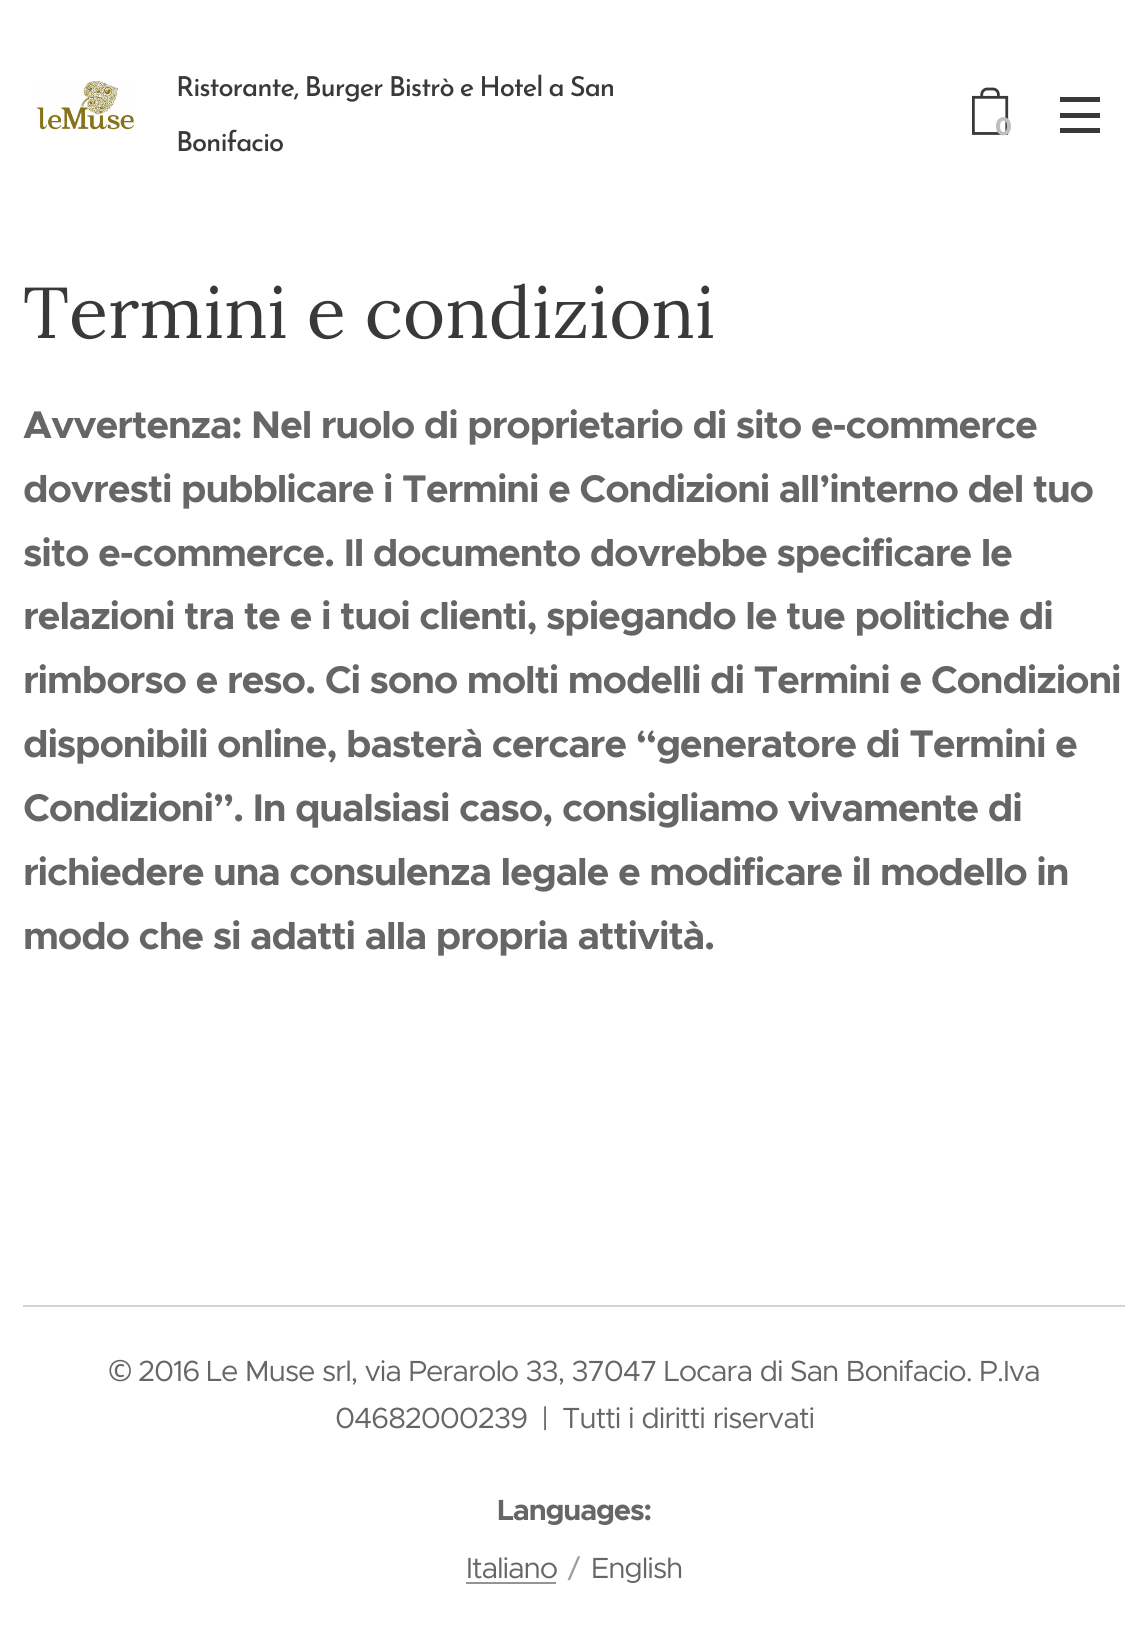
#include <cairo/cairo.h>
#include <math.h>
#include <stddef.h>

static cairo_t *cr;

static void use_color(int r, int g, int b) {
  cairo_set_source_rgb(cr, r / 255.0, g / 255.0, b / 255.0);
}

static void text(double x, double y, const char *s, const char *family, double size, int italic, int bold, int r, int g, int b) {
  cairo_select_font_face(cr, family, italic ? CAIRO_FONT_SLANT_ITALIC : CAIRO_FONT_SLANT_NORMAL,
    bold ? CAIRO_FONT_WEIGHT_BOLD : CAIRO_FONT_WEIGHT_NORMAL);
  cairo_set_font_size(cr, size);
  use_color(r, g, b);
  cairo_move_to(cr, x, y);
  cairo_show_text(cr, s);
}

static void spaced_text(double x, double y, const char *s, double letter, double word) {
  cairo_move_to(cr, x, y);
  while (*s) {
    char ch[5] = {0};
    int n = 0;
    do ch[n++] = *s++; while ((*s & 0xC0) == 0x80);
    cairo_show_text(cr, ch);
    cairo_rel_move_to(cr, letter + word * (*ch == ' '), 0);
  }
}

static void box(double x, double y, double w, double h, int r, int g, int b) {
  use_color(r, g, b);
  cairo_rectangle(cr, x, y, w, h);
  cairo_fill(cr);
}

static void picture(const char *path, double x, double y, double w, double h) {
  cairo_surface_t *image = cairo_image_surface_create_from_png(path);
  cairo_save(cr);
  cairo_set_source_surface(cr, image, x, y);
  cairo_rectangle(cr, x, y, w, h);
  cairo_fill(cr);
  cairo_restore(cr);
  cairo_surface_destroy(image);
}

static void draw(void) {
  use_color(255, 255, 255);
  cairo_paint(cr);
  picture("img_01.png", 36, 81, 98, 49);
  picture("img_02.png", 972, 87, 37, 48);
  box(1060, 113, 40, 5, 57, 57, 57);
  box(1060, 97, 40, 5, 57, 57, 57);
  box(1060, 128, 40, 5, 57, 57, 57);
  box(23, 1305, 1102, 2, 212, 212, 212);
  box(466, 1582, 90, 2, 148, 148, 148);
  cairo_select_font_face(cr, "Josefin Sans Medium", CAIRO_FONT_SLANT_NORMAL, CAIRO_FONT_WEIGHT_NORMAL);
  cairo_set_font_size(cr, 27.4);
  use_color(57, 57, 57);
  spaced_text(176, 96, "Ristorante, Burger Bistrò e Hotel a San", -1.05, -1.5);
  spaced_text(176, 151, "Bonifacio", -1.05, 0);
  text(995, 135, "0", "Montserrat", 25, 0, 1, 191, 191, 191);
  text(23, 338, "Termini e condizioni", "Lora", 72, 0, 0, 57, 57, 57);
  cairo_select_font_face(cr, "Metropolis", CAIRO_FONT_SLANT_NORMAL, CAIRO_FONT_WEIGHT_BOLD);
  cairo_set_font_size(cr, 38.7);
  use_color(102, 102, 102);
  spaced_text(23, 438, "Avvertenza: Nel ruolo di proprietario di sito e-commerce", -1.15, 0);
  spaced_text(23, 502, "dovresti pubblicare i Termini e Condizioni all’interno del tuo", -1.15, 0);
  spaced_text(23, 566, "sito e-commerce. Il documento dovrebbe specificare le", -1.15, 0);
  spaced_text(23, 629, "relazioni tra te e i tuoi clienti, spiegando le tue politiche di", -1.15, 0);
  spaced_text(23, 693, "rimborso e reso. Ci sono molti modelli di Termini e Condizioni", -1.15, 0);
  spaced_text(23, 757, "disponibili online, basterà cercare “generatore di Termini e", -1.15, 0);
  spaced_text(23, 821, "Condizioni”. In qualsiasi caso, consigliamo vivamente di", -1.15, 0);
  spaced_text(23, 885, "richiedere una consulenza legale e modificare il modello in", -1.15, 0);
  spaced_text(23, 949, "modo che si adatti alla propria attività.", -1.15, 0);
  cairo_select_font_face(cr, "Noto Sans", CAIRO_FONT_SLANT_NORMAL, CAIRO_FONT_WEIGHT_NORMAL);
  cairo_set_font_size(cr, 29.25);
  spaced_text(108, 1381, "©", -1.15, 0);
  cairo_select_font_face(cr, "Metropolis", CAIRO_FONT_SLANT_NORMAL, CAIRO_FONT_WEIGHT_NORMAL);
  spaced_text(138, 1381, "2016", -1.15, 0);
  spaced_text(206, 1381, "Le Muse srl, via Perarolo 33, 37047 Locara di San Bonifacio. P.Iva", -1.15, 0);
  spaced_text(335, 1428, "04682000239", -1.15, 0);
  spaced_text(541, 1428, "|", -1.15, 0);
  spaced_text(562, 1428, "Tutti i diritti riservati", -1.15, 0.5);
  cairo_select_font_face(cr, "Metropolis", CAIRO_FONT_SLANT_NORMAL, CAIRO_FONT_WEIGHT_BOLD);
  spaced_text(497, 1520, "Languages:", -1.15, 0);
  cairo_select_font_face(cr, "Metropolis", CAIRO_FONT_SLANT_NORMAL, CAIRO_FONT_WEIGHT_NORMAL);
  spaced_text(466, 1578, "Italiano", -1.15, 0);
  use_color(157, 157, 157);
  spaced_text(568, 1578, "/", -1.15, 0);
  use_color(102, 102, 102);
  spaced_text(591, 1578, "English", -1.15, 0);
}

int main(void) {
  cairo_surface_t *surface = cairo_image_surface_create(CAIRO_FORMAT_RGB24, 1147, 1637);
  cr = cairo_create(surface);
  cairo_font_options_t *options = cairo_font_options_create();
  cairo_font_options_set_hint_metrics(options, CAIRO_HINT_METRICS_OFF);
  cairo_font_options_set_hint_style(options, CAIRO_HINT_STYLE_NONE);
  cairo_set_font_options(cr, options);
  cairo_set_miter_limit(cr, 4);
  draw();
  cairo_surface_write_to_png(surface, "out.png");
  cairo_font_options_destroy(options);
  cairo_destroy(cr);
  cairo_surface_destroy(surface);
  return 0;
}
